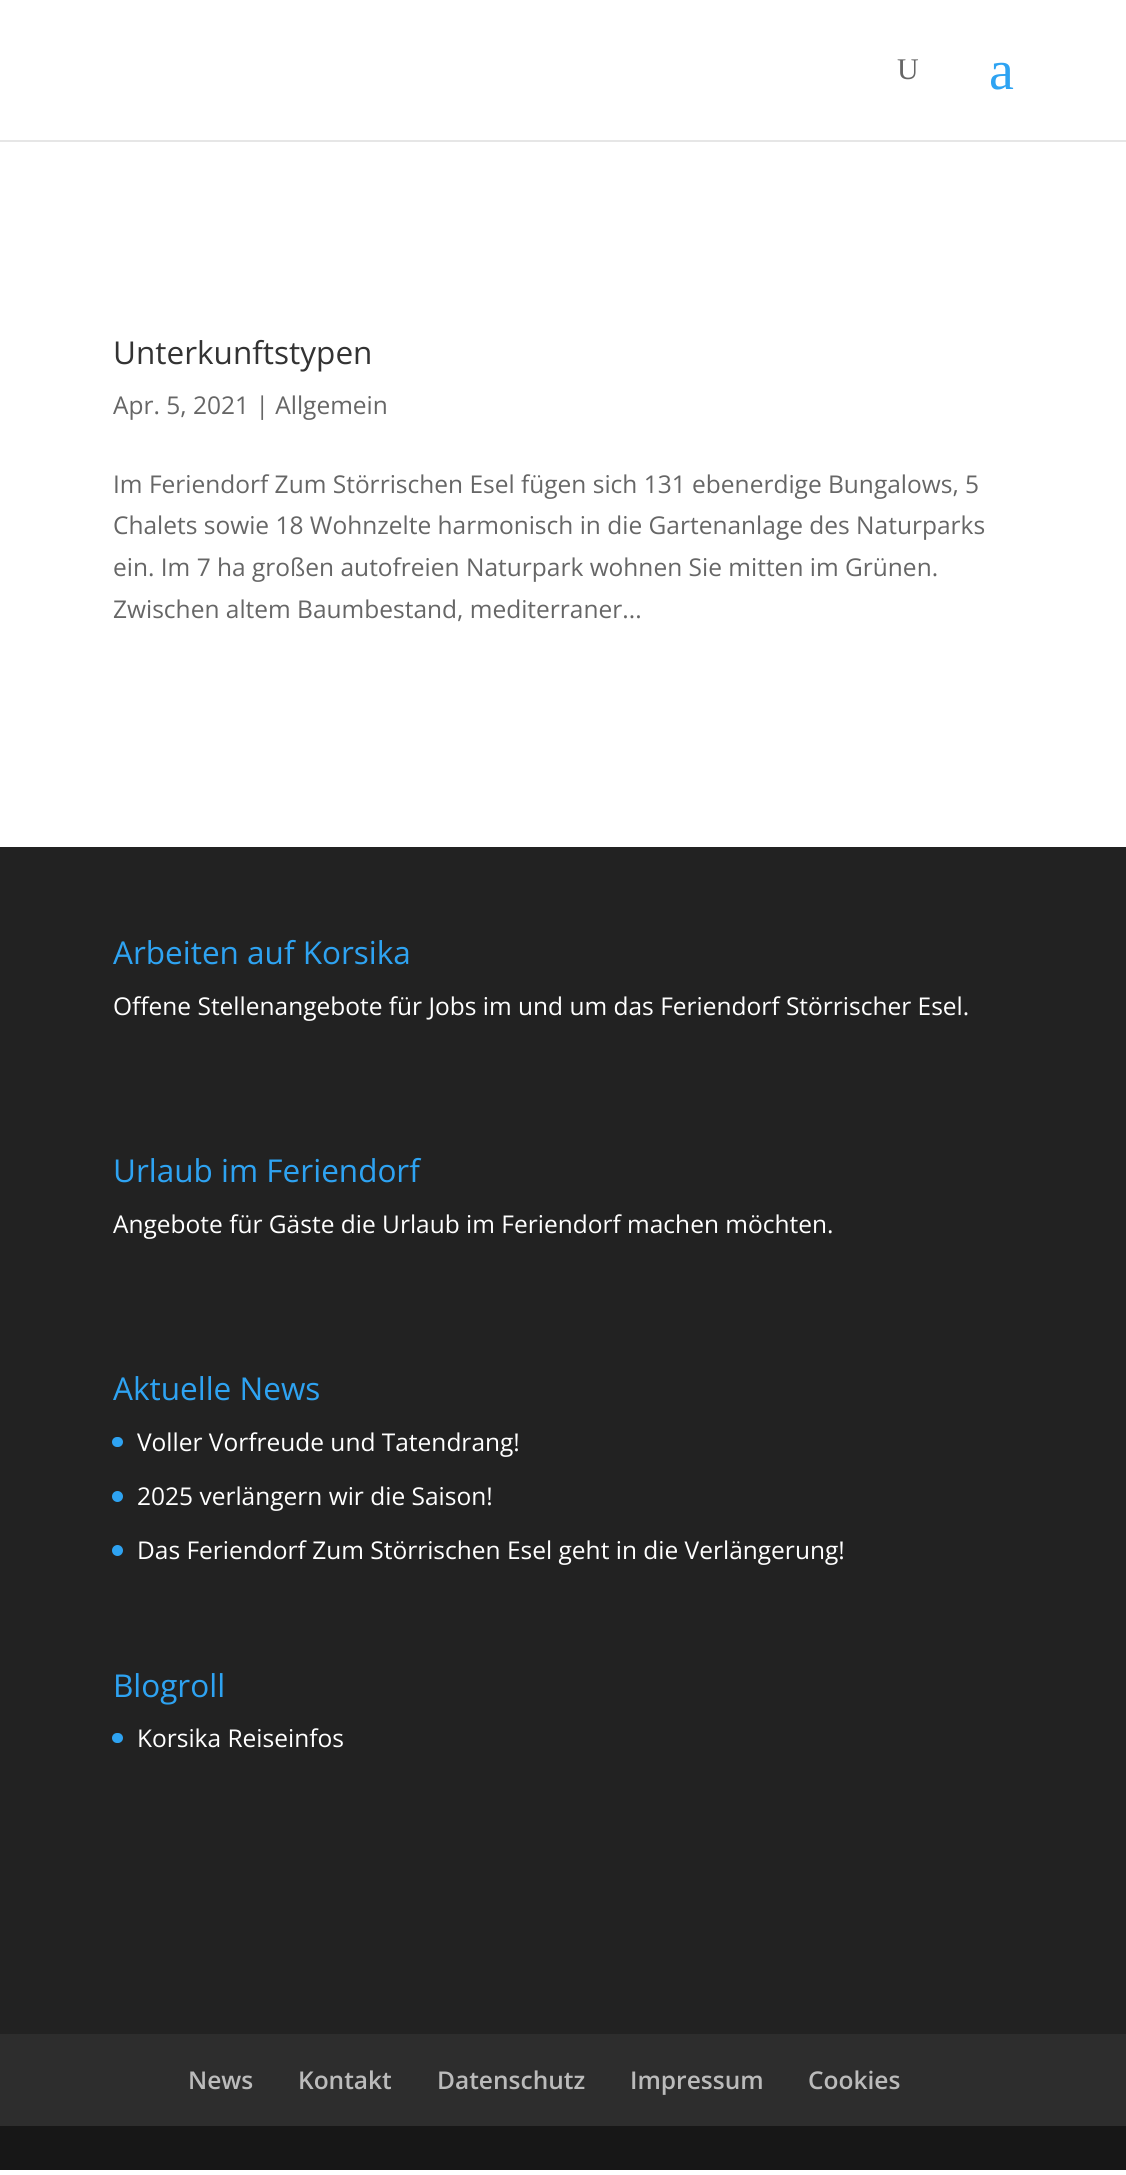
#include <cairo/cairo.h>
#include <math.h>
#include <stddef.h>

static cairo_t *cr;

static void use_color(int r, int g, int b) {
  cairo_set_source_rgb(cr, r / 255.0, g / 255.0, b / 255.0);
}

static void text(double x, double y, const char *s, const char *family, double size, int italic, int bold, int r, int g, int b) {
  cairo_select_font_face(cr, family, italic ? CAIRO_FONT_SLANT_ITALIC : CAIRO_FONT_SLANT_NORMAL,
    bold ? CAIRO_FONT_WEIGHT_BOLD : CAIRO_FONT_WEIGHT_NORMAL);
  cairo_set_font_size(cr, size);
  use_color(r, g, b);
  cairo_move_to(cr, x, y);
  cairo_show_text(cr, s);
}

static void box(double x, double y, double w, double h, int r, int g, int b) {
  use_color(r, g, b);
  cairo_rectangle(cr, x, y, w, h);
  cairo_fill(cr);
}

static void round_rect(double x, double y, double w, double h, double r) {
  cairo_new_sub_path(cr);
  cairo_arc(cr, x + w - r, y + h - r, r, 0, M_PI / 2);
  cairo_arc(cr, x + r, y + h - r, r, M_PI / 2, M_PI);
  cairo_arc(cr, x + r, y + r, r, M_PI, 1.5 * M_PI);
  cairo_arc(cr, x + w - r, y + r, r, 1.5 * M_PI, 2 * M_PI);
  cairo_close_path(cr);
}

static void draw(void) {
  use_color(255, 255, 255);
  cairo_paint(cr);
  box(0, 140, 1126, 2, 230, 230, 230);
  box(0, 847, 1126, 1187, 34, 34, 34);
  use_color(46, 163, 242);
  round_rect(112, 1437, 11, 10, 5);
  cairo_fill(cr);
  cairo_arc(cr, 117.5, 1496.5, 5.5, 0, 2 * M_PI);
  cairo_fill(cr);
  cairo_arc(cr, 117.5, 1550.5, 5.5, 0, 2 * M_PI);
  cairo_fill(cr);
  round_rect(112, 1733, 11, 10, 5);
  cairo_fill(cr);
  box(0, 2034, 1126, 92, 45, 45, 45);
  box(0, 2126, 1126, 44, 23, 23, 23);
  text(897, 79, "U", "Liberation Serif", 30, 0, 0, 102, 102, 102);
  text(989, 89, "a", "Liberation Serif", 56, 0, 0, 46, 163, 242);
  text(113, 364, "Unterkunftstypen", "Open Sans", 31.5, 0, 0, 51, 51, 51);
  text(113, 414, "Apr. 5, 2021 | Allgemein", "Open Sans", 24.5, 0, 0, 102, 102, 102);
  text(113, 493, "Im Feriendorf Zum Störrischen Esel fügen sich 131 ebenerdige Bungalows, 5", "Open Sans", 24.5, 0, 0, 102, 102, 102);
  text(113, 534, "Chalets sowie 18 Wohnzelte harmonisch in die Gartenanlage des Naturparks", "Open Sans", 24.5, 0, 0, 102, 102, 102);
  text(113, 576, "ein. Im 7 ha großen autofreien Naturpark wohnen Sie mitten im Grünen.", "Open Sans", 24.5, 0, 0, 102, 102, 102);
  text(113, 618, "Zwischen altem Baumbestand, mediterraner...", "Open Sans", 24.5, 0, 0, 102, 102, 102);
  text(113, 964, "Arbeiten auf Korsika", "Open Sans", 31.5, 0, 0, 46, 163, 242);
  text(113, 1015, "Offene Stellenangebote für Jobs im und um das Feriendorf Störrischer Esel.", "Open Sans", 24.5, 0, 0, 255, 255, 255);
  text(113, 1182, "Urlaub im Feriendorf", "Open Sans", 31.5, 0, 0, 46, 163, 242);
  text(113, 1233, "Angebote für Gäste die Urlaub im Feriendorf machen möchten.", "Open Sans", 24.5, 0, 0, 255, 255, 255);
  text(113, 1400, "Aktuelle News", "Open Sans", 31.5, 0, 0, 46, 163, 242);
  text(137, 1451, "Voller Vorfreude und Tatendrang!", "Open Sans", 24.5, 0, 0, 255, 255, 255);
  text(137, 1505, "2025 verlängern wir die Saison!", "Open Sans", 24.5, 0, 0, 255, 255, 255);
  text(137, 1559, "Das Feriendorf Zum Störrischen Esel geht in die Verlängerung!", "Open Sans", 24.5, 0, 0, 255, 255, 255);
  text(113, 1697, "Blogroll", "Open Sans", 31.5, 0, 0, 46, 163, 242);
  text(137, 1747, "Korsika Reiseinfos", "Open Sans", 24.5, 0, 0, 255, 255, 255);
  text(188, 2089, "News", "Open Sans SemiBold", 24.5, 0, 0, 187, 187, 187);
  text(298, 2089, "Kontakt", "Open Sans SemiBold", 24.5, 0, 0, 187, 187, 187);
  text(437, 2089, "Datenschutz", "Open Sans SemiBold", 24.5, 0, 0, 187, 187, 187);
  text(630, 2089, "Impressum", "Open Sans SemiBold", 24.5, 0, 0, 187, 187, 187);
  text(808, 2089, "Cookies", "Open Sans SemiBold", 24.5, 0, 0, 187, 187, 187);
}

int main(void) {
  cairo_surface_t *surface = cairo_image_surface_create(CAIRO_FORMAT_RGB24, 1126, 2175);
  cr = cairo_create(surface);
  cairo_font_options_t *options = cairo_font_options_create();
  cairo_font_options_set_hint_metrics(options, CAIRO_HINT_METRICS_OFF);
  cairo_font_options_set_hint_style(options, CAIRO_HINT_STYLE_NONE);
  cairo_set_font_options(cr, options);
  cairo_set_miter_limit(cr, 4);
  draw();
  cairo_surface_write_to_png(surface, "out.png");
  cairo_font_options_destroy(options);
  cairo_destroy(cr);
  cairo_surface_destroy(surface);
  return 0;
}
